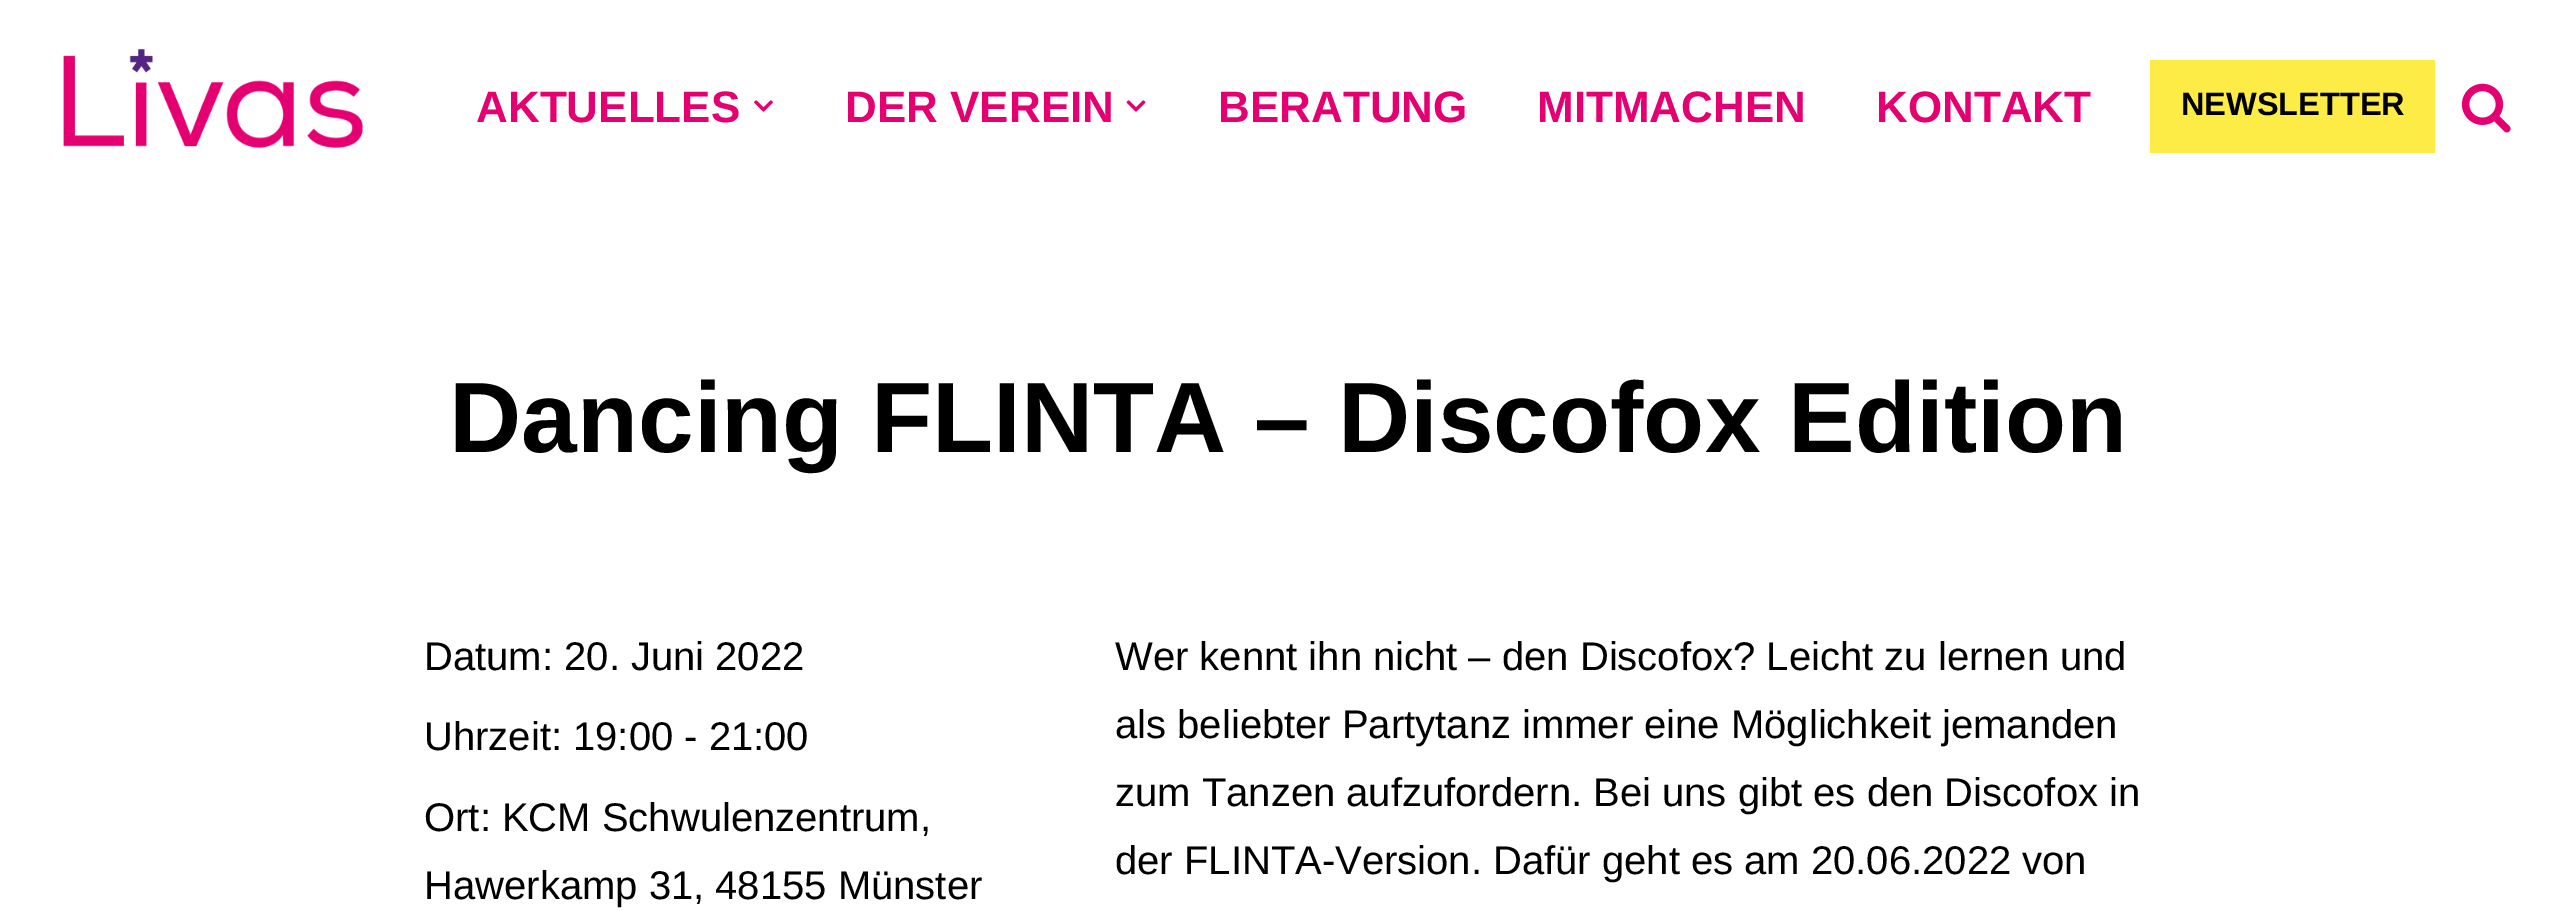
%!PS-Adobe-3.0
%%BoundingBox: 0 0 2574 911
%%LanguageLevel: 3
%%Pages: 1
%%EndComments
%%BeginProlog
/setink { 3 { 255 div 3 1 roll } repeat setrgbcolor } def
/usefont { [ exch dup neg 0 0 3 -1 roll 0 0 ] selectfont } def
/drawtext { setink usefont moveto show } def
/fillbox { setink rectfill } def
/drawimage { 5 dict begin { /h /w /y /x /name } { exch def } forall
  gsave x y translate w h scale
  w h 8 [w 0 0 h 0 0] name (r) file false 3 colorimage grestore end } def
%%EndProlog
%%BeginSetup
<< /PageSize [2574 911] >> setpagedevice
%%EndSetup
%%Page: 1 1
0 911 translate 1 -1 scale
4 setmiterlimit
0 0 2574 911 255 255 255 fillbox
(assets/img1.rgb) 63 49 300 100 drawimage
(AKTUELLES) 476 122 /LiberationSans-Bold 44 229 0 113 drawtext
(assets/img2.rgb) 754 100 19 12 drawimage
(DER VEREIN) 845 122 /LiberationSans-Bold 44 229 0 113 drawtext
(assets/img3.rgb) 1126 100 20 12 drawimage
(BERATUNG) 1218 122 /LiberationSans-Bold 44 229 0 113 drawtext
(MITMACHEN) 1537 122 /LiberationSans-Bold 44 229 0 113 drawtext
(KONTAKT) 1876 122 /LiberationSans-Bold 44 229 0 113 drawtext
2150 60 285 93 252 236 69 fillbox
(NEWSLETTER) 2181 115 /LiberationSans-Bold 32.5 0 0 0 drawtext
(assets/img4.rgb) 2461 83 50 50 drawimage
(Dancing FLINTA – Discofox Edition) 449 452 /LiberationSans-Bold 100 0 0 0 drawtext
(Datum: 20. Juni 2022) 424 670 /LiberationSans-Regular 40 0 0 0 drawtext
(Uhrzeit: 19:00 - 21:00) 424 750 /LiberationSans-Regular 40 0 0 0 drawtext
(Ort: KCM Schwulenzentrum,) 424 831 /LiberationSans-Regular 40 0 0 0 drawtext
(Hawerkamp 31, 48155 Münster) 424 899 /LiberationSans-Regular 40 0 0 0 drawtext
(Wer kennt ihn nicht – den Discofox? Leicht zu lernen und) 1115 670 /LiberationSans-Regular 40 0 0 0 drawtext
(als beliebter Partytanz immer eine Möglichkeit jemanden) 1115 738 /LiberationSans-Regular 40 0 0 0 drawtext
(zum Tanzen aufzufordern. Bei uns gibt es den Discofox in) 1115 806 /LiberationSans-Regular 40 0 0 0 drawtext
(der FLINTA-Version. Dafür geht es am 20.06.2022 von) 1115 874 /LiberationSans-Regular 40 0 0 0 drawtext
showpage
%%EOF
